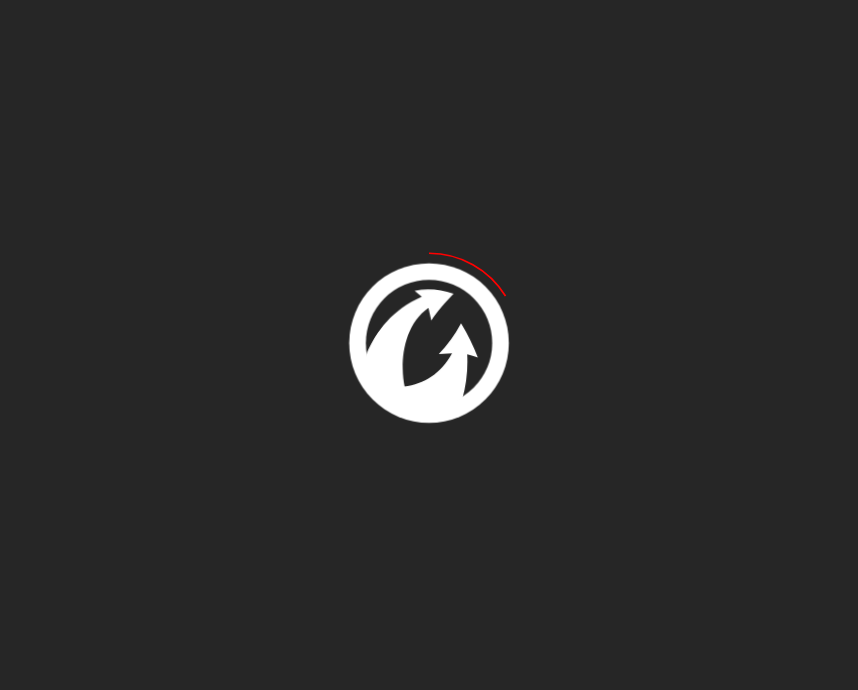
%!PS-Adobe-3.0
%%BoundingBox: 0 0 858 690
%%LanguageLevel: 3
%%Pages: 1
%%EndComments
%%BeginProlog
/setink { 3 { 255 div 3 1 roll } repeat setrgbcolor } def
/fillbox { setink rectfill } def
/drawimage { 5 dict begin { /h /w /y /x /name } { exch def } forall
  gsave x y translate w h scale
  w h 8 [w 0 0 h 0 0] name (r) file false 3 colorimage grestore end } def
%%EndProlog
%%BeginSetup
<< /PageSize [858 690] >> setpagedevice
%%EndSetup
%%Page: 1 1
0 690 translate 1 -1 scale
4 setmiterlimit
0 0 858 690 38 38 38 fillbox
(assets/img1.rgb) 348 252 162 172 drawimage
showpage
%%EOF
